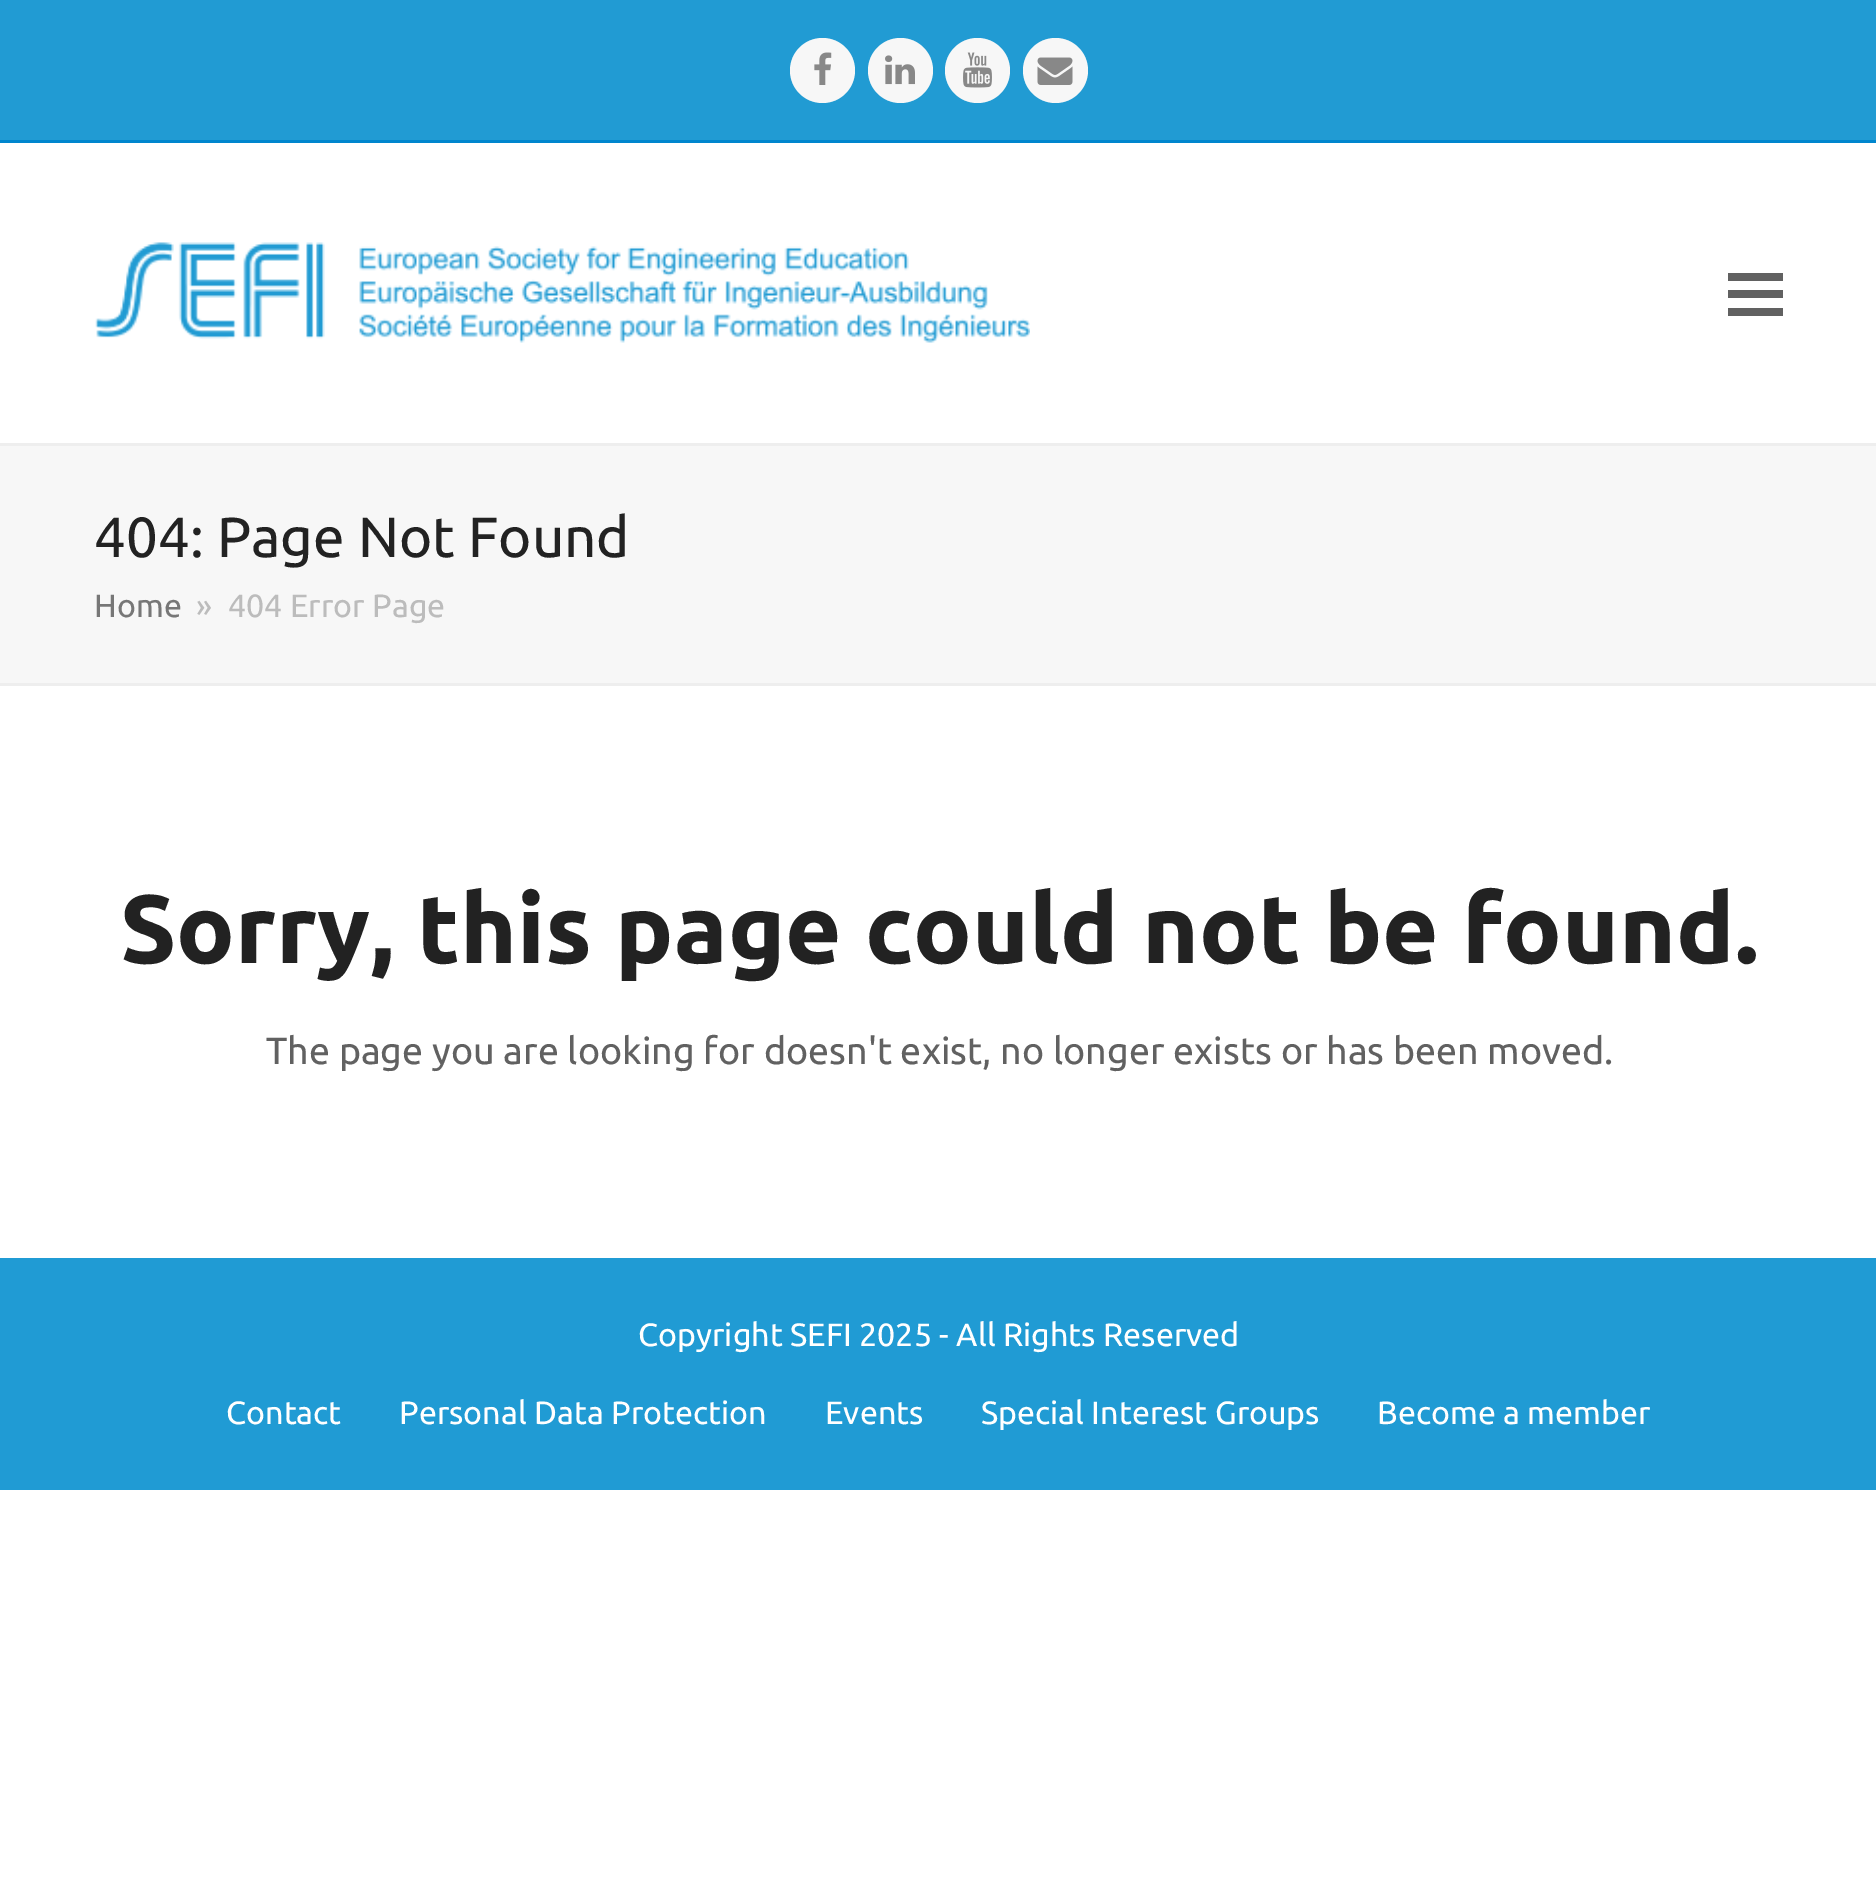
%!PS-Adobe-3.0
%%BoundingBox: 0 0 1876 1899
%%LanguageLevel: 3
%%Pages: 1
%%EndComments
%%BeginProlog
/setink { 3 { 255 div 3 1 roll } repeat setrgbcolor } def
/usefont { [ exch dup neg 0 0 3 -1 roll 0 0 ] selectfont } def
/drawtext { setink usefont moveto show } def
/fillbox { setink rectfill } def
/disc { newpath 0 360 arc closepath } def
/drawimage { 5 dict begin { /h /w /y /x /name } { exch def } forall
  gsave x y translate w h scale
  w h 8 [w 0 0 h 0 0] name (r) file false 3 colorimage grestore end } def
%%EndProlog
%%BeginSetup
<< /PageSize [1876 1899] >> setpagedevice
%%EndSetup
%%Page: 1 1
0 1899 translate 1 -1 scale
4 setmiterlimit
0 0 1876 1899 255 255 255 fillbox
0 0 1876 140 33 155 211 fillbox
0 140 1876 3 0 134 206 fillbox
247 247 247 setink
822.5 70.5 32.5 disc fill
(assets/img1.rgb) 814 52 18 33 drawimage
900.5 70.5 32.5 disc fill
(assets/img2.rgb) 885 55 30 30 drawimage
977.5 70.5 32.5 disc fill
(assets/img3.rgb) 963 52 29 36 drawimage
1055.5 70.5 32.5 disc fill
(assets/img4.rgb) 1037 57 36 28 drawimage
(assets/img5.rgb) 95 242 935 101 drawimage
1728 290 55 8 97 97 97 fillbox
1728 273 55 8 97 97 97 fillbox
1728 308 55 8 97 97 97 fillbox
0 446 1876 237 247 247 247 fillbox
0 443 1876 3 238 238 238 fillbox
0 683 1876 3 238 238 238 fillbox
(404: Page Not Found) 94 557 /Ubuntu-Regular 56.5 34 34 34 drawtext
(Home) 94 617 /Ubuntu-Regular 32.25 119 119 119 drawtext
(») 196 617 /Ubuntu-Regular 32.25 188 188 188 drawtext
(404 Error Page) 228 617 /Ubuntu-Regular 32.25 188 188 188 drawtext
(Sorry, this page could not be found.) 120 963 /Ubuntu-Bold 96.9 34 34 34 drawtext
(The page you are looking for doesn't exist, no longer exists or has been moved.) 266 1064 /Ubuntu-Regular 37.7 97 97 97 drawtext
0 1258 1876 232 32 155 212 fillbox
(Copyright SEFI 2025 - All Rights Reserved) 638 1346 /Ubuntu-Regular 32.25 255 255 255 drawtext
(Contact) 226 1424 /Ubuntu-Regular 32.25 255 255 255 drawtext
(Personal Data Protection) 399 1424 /Ubuntu-Regular 32.25 255 255 255 drawtext
(Events) 825 1424 /Ubuntu-Regular 32.25 255 255 255 drawtext
(Special Interest Groups) 981 1424 /Ubuntu-Regular 32.25 255 255 255 drawtext
(Become a member) 1377 1424 /Ubuntu-Regular 32.25 255 255 255 drawtext
showpage
%%EOF
